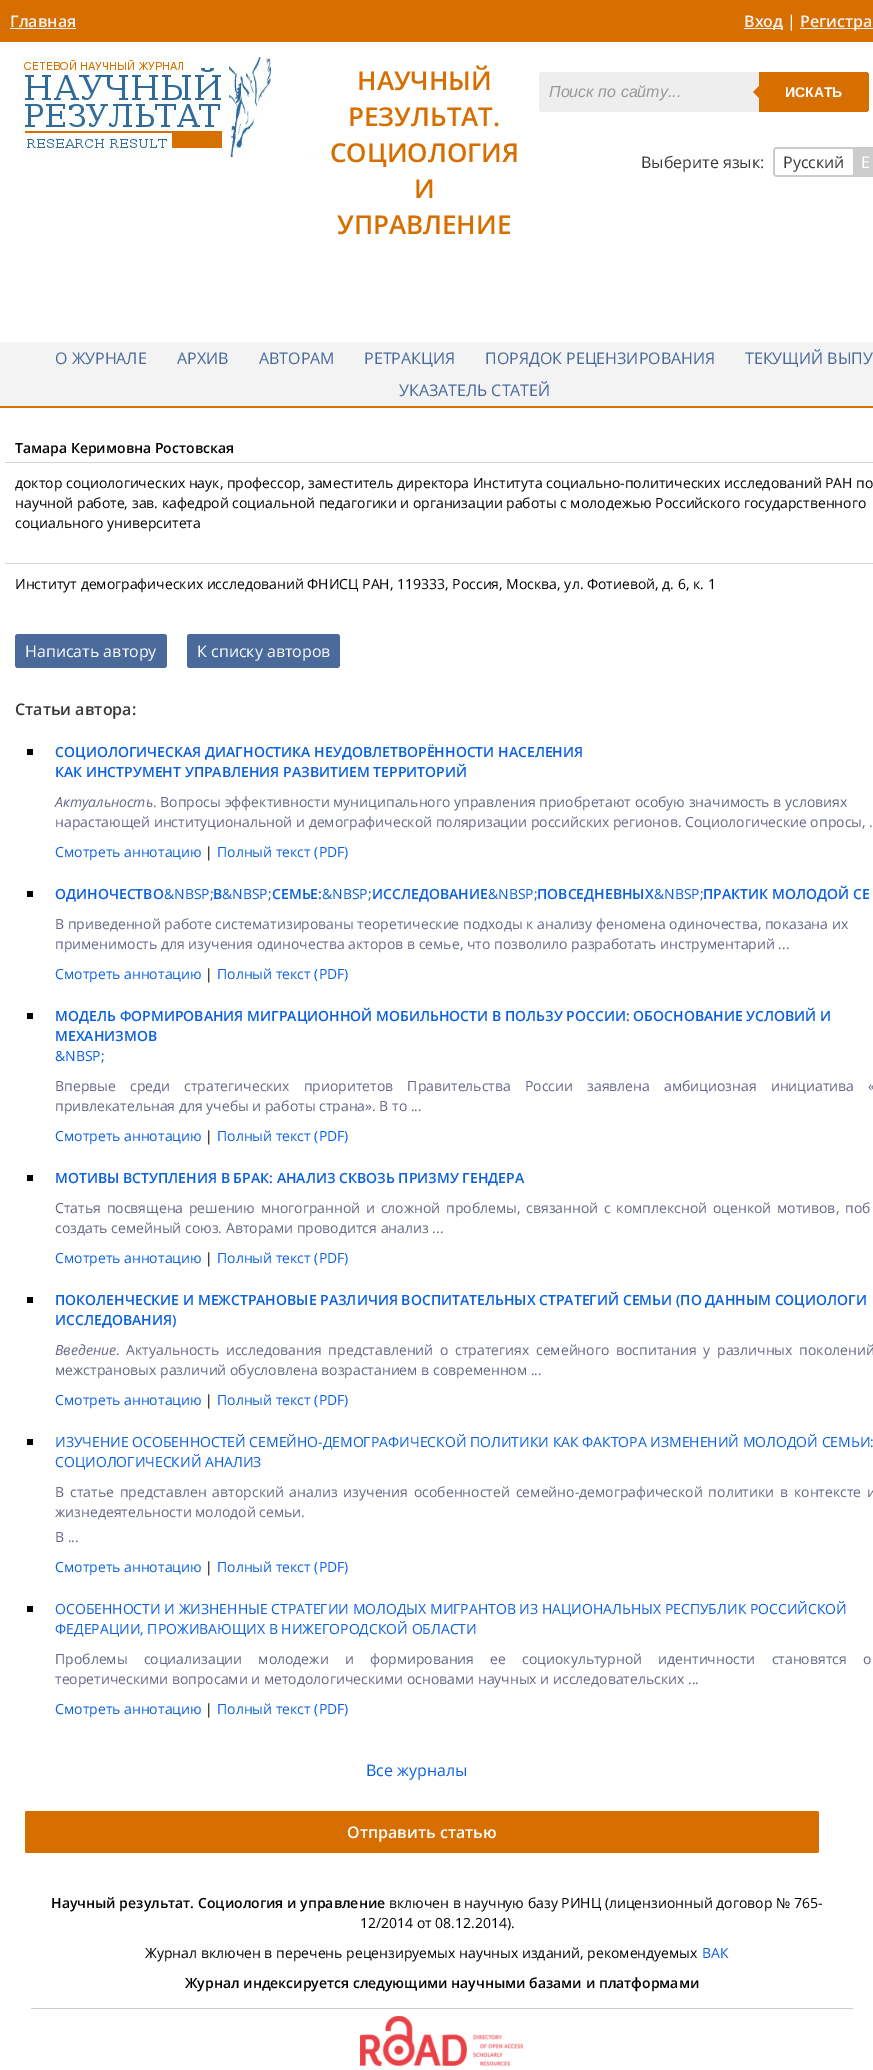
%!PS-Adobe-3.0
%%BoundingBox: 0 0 873 2070
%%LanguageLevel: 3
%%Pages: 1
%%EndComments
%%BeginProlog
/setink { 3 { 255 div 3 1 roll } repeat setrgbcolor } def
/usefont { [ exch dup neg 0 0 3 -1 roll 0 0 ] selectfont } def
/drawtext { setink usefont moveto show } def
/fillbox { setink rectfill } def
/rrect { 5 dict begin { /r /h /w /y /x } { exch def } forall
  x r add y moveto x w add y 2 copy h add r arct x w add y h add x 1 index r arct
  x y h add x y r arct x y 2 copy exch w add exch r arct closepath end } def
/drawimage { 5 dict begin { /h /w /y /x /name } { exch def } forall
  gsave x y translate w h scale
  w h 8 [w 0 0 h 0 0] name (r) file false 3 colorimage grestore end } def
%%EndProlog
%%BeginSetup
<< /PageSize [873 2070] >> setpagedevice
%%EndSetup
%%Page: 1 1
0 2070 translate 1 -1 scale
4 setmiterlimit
0 0 873 2070 255 255 255 fillbox
0 0 873 42 215 110 0 fillbox
(Главная) 10 27 /OpenSans-SemiBold 16 241 241 241 drawtext
10 28 66 1 241 241 241 fillbox
744 28 39 1 241 241 241 fillbox
(Вход) 744 27 /OpenSans-SemiBold 16 241 241 241 drawtext
(|) 787 27 /OpenSans-Regular 16 255 255 255 drawtext
800 28 73 1 241 241 241 fillbox
(Регистра) 800 27 /OpenSans-SemiBold 16 241 241 241 drawtext
(assets/img1.rgb) 23 57 292 100 drawimage
(НАУЧНЫЙ) 357 90 /OpenSans-SemiBold 26 215 110 0 drawtext
(РЕЗУЛЬТАТ.) 348 126 /OpenSans-SemiBold 26 215 110 0 drawtext
(СОЦИОЛОГИЯ) 330 162 /OpenSans-SemiBold 26 215 110 0 drawtext
(И) 414 198 /OpenSans-SemiBold 26 215 110 0 drawtext
(УПРАВЛЕНИЕ) 337 234 /OpenSans-SemiBold 26 215 110 0 drawtext
238 238 238 setink
542 72 moveto 759 72 lineto 759 112 lineto 542 112 lineto 540.5 112 539 110.5 539 109 curveto 539 75 lineto 539 73.5 540.5 72 542 72 curveto closepath fill
(Поиск по сайту...) 549 97 /LiberationSans-Italic 16 153 153 153 drawtext
215 110 0 setink
759 72 moveto 866 72 lineto 867.5 72 869 73.5 869 75 curveto 869 109 lineto 869 110.5 867.5 112 866 112 curveto 759 112 lineto closepath fill
761 84 moveto 761 100 lineto 753 92 lineto closepath fill
(ИСКАТЬ) 785 97 /LiberationSans-Bold 14 255 255 255 drawtext
(Выберите язык:) 641 168 /OpenSans-Regular 16 57 57 57 drawtext
204 204 204 setink
773 147 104 30 4 rrect fill
255 255 255 setink
775 149 78 26 2 rrect fill
(Русский) 783 168 /OpenSans-Regular 16 57 57 57 drawtext
(E) 861 168 /OpenSans-Regular 16 255 255 255 drawtext
0 342 873 64 243 243 243 fillbox
0 406 873 2 215 110 0 fillbox
(О ЖУРНАЛЕ) 55 364 /OpenSans-Regular 16 73 106 155 drawtext
(АРХИВ) 177 364 /OpenSans-Regular 16 73 106 155 drawtext
(АВТОРАМ) 259 364 /OpenSans-Regular 16 73 106 155 drawtext
(РЕТРАКЦИЯ) 364 364 /OpenSans-Regular 16 73 106 155 drawtext
(ПОРЯДОК РЕЦЕНЗИРОВАНИЯ) 485 364 /OpenSans-Regular 16 73 106 155 drawtext
(ТЕКУЩИЙ ВЫПУ) 745 364 /OpenSans-Regular 16 73 106 155 drawtext
(УКАЗАТЕЛЬ СТАТЕЙ) 399 396 /OpenSans-Regular 16 73 106 155 drawtext
(Тамара Керимовна Ростовская) 15 453 /OpenSans-SemiBold 14 0 0 0 drawtext
5 462 868 1 208 212 220 fillbox
(доктор социологических наук, профессор, заместитель директора Института социально-политических исследований РАН по) 15 488 /OpenSans-Regular 14 0 0 0 drawtext
(научной работе, зав. кафедрой социальной педагогики и организации работы с молодежью Российского государственного) 15 508 /OpenSans-Regular 14 0 0 0 drawtext
(социального университета) 15 528 /OpenSans-Regular 14 0 0 0 drawtext
5 563 868 1 208 212 220 fillbox
(Институт демографических исследований ФНИСЦ РАН, 119333, Россия, Москва, ул. Фотиевой, д. 6, к. 1) 15 589 /OpenSans-Regular 14 0 0 0 drawtext
73 106 155 setink
15 634 152 34 3 rrect fill
(Написать автору) 25 657 /OpenSans-Regular 16 255 255 255 drawtext
73 106 155 setink
187 634 153 34 3 rrect fill
(К списку авторов) 197 657 /OpenSans-Regular 16 255 255 255 drawtext
(Статьи автора:) 15 715 /OpenSans-SemiBold 16 57 57 57 drawtext
27 749 6 6 0 0 0 fillbox
(СОЦИОЛОГИЧЕСКАЯ ДИАГНОСТИКА НЕУДОВЛЕТВОРЁННОСТИ НАСЕЛЕНИЯ) 55 757 /OpenSans-SemiBold 14 12 97 224 drawtext
(КАК ИНСТРУМЕНТ УПРАВЛЕНИЯ РАЗВИТИЕМ ТЕРРИТОРИЙ) 55 777 /OpenSans-SemiBold 14 12 97 224 drawtext
(Актуальность) 55 807 /OpenSans-Italic 14 100 103 134 drawtext
(. Вопросы эффективности муниципального управления приобретают особую значимость в условиях) 153 807 /OpenSans-Regular 14 100 103 134 drawtext
(нарастающей институциональной и демографической поляризации российских регионов. Социологические опросы, .) 55 827 /OpenSans-Regular 14 100 103 134 drawtext
(Смотреть аннотацию) 55 857 /OpenSans-Regular 14 12 97 224 drawtext
(|) 205 857 /OpenSans-Regular 14 0 0 0 drawtext
(Полный текст \(PDF\)) 217 857 /OpenSans-Regular 14 12 97 224 drawtext
27 891 6 6 0 0 0 fillbox
(ОДИНОЧЕСТВО) 55 899 /OpenSans-SemiBold 14 12 97 224 drawtext
(&NBSP;) 164 899 /OpenSans-Regular 14 12 97 224 drawtext
(В) 213 899 /OpenSans-SemiBold 14 12 97 224 drawtext
(&NBSP;) 222 899 /OpenSans-Regular 14 12 97 224 drawtext
(СЕМЬЕ:) 272 899 /OpenSans-SemiBold 14 12 97 224 drawtext
(&NBSP;) 322 899 /OpenSans-Regular 14 12 97 224 drawtext
(ИССЛЕДОВАНИЕ) 372 899 /OpenSans-SemiBold 14 12 97 224 drawtext
(&NBSP;) 488 899 /OpenSans-Regular 14 12 97 224 drawtext
(ПОВСЕДНЕВНЫХ) 537 899 /OpenSans-SemiBold 14 12 97 224 drawtext
(&NBSP;) 654 899 /OpenSans-Regular 14 12 97 224 drawtext
(ПРАКТИК МОЛОДОЙ СЕ) 703 899 /OpenSans-SemiBold 14 12 97 224 drawtext
(В приведенной работе систематизированы теоретические подходы к анализу феномена одиночества, показана их) 55 929 /OpenSans-Regular 14 100 103 134 drawtext
(применимость для изучения одиночества акторов в семье, что позволило разработать инструментарий ...) 55 949 /OpenSans-Regular 14 100 103 134 drawtext
(Смотреть аннотацию) 55 979 /OpenSans-Regular 14 12 97 224 drawtext
(|) 205 979 /OpenSans-Regular 14 0 0 0 drawtext
(Полный текст \(PDF\)) 217 979 /OpenSans-Regular 14 12 97 224 drawtext
27 1013 6 6 0 0 0 fillbox
(МОДЕЛЬ ФОРМИРОВАНИЯ МИГРАЦИОННОЙ МОБИЛЬНОСТИ В ПОЛЬЗУ РОССИИ: ОБОСНОВАНИЕ УСЛОВИЙ И) 55 1021 /OpenSans-SemiBold 14 12 97 224 drawtext
(МЕХАНИЗМОВ) 55 1041 /OpenSans-SemiBold 14 12 97 224 drawtext
(&NBSP;) 55 1061 /OpenSans-Regular 14 12 97 224 drawtext
100 103 134 setink
55 1091 moveto 10.5 0 32 (Впервые среди стратегических приоритетов Правительства России заявлена амбициозная инициатива «) widthshow
(привлекательная для учебы и работы страна». В то ...) 55 1111 /OpenSans-Regular 14 100 103 134 drawtext
(Смотреть аннотацию) 55 1141 /OpenSans-Regular 14 12 97 224 drawtext
(|) 205 1141 /OpenSans-Regular 14 0 0 0 drawtext
(Полный текст \(PDF\)) 217 1141 /OpenSans-Regular 14 12 97 224 drawtext
27 1175 6 6 0 0 0 fillbox
(МОТИВЫ ВСТУПЛЕНИЯ В БРАК: АНАЛИЗ СКВОЗЬ ПРИЗМУ ГЕНДЕРА) 55 1183 /OpenSans-SemiBold 14 12 97 224 drawtext
/OpenSans-Regular 14 usefont
100 103 134 setink
55 1213 moveto 2.1 0 32 (Статья посвящена решению многогранной и сложной проблемы, связанной с комплексной оценкой мотивов, поб) widthshow
(создать семейный союз. Авторами проводится анализ ...) 55 1233 /OpenSans-Regular 14 100 103 134 drawtext
(Смотреть аннотацию) 55 1263 /OpenSans-Regular 14 12 97 224 drawtext
(|) 205 1263 /OpenSans-Regular 14 0 0 0 drawtext
(Полный текст \(PDF\)) 217 1263 /OpenSans-Regular 14 12 97 224 drawtext
27 1297 6 6 0 0 0 fillbox
(ПОКОЛЕНЧЕСКИЕ И МЕЖСТРАНОВЫЕ РАЗЛИЧИЯ ВОСПИТАТЕЛЬНЫХ СТРАТЕГИЙ СЕМЬИ \(ПО ДАННЫМ СОЦИОЛОГИ) 55 1305 /OpenSans-SemiBold 14 12 97 224 drawtext
(ИССЛЕДОВАНИЯ\)) 55 1325 /OpenSans-SemiBold 14 12 97 224 drawtext
(Введение) 55 1355 /OpenSans-Italic 14 100 103 134 drawtext
/OpenSans-Regular 14 usefont
116 1355 moveto 3.1 0 32 (. Актуальность исследования представлений о стратегиях семейного воспитания у различных поколений) widthshow
(межстрановых различий обусловлена возрастанием в современном ...) 55 1375 /OpenSans-Regular 14 100 103 134 drawtext
(Смотреть аннотацию) 55 1405 /OpenSans-Regular 14 12 97 224 drawtext
(|) 205 1405 /OpenSans-Regular 14 0 0 0 drawtext
(Полный текст \(PDF\)) 217 1405 /OpenSans-Regular 14 12 97 224 drawtext
27 1439 6 6 0 0 0 fillbox
(ИЗУЧЕНИЕ ОСОБЕННОСТЕЙ СЕМЕЙНО-ДЕМОГРАФИЧЕСКОЙ ПОЛИТИКИ КАК ФАКТОРА ИЗМЕНЕНИЙ МОЛОДОЙ СЕМЬИ:) 55 1447 /OpenSans-Regular 14 12 97 224 drawtext
(СОЦИОЛОГИЧЕСКИЙ АНАЛИЗ) 55 1467 /OpenSans-Regular 14 12 97 224 drawtext
100 103 134 setink
55 1497 moveto 2.25 0 32 (В статье представлен авторский анализ изучения особенностей семейно-демографической политики в контексте и) widthshow
(жизнедеятельности молодой семьи.) 55 1517 /OpenSans-Regular 14 100 103 134 drawtext
(В ...) 55 1542 /OpenSans-Regular 14 100 103 134 drawtext
(Смотреть аннотацию) 55 1572 /OpenSans-Regular 14 12 97 224 drawtext
(|) 205 1572 /OpenSans-Regular 14 0 0 0 drawtext
(Полный текст \(PDF\)) 217 1572 /OpenSans-Regular 14 12 97 224 drawtext
27 1606 6 6 0 0 0 fillbox
(ОСОБЕННОСТИ И ЖИЗНЕННЫЕ СТРАТЕГИИ МОЛОДЫХ МИГРАНТОВ ИЗ НАЦИОНАЛЬНЫХ РЕСПУБЛИК РОССИЙСКОЙ) 55 1614 /OpenSans-Regular 14 12 97 224 drawtext
(ФЕДЕРАЦИИ, ПРОЖИВАЮЩИХ В НИЖЕГОРОДСКОЙ ОБЛАСТИ) 55 1634 /OpenSans-Regular 14 12 97 224 drawtext
100 103 134 setink
55 1664 moveto 12.5 0 32 (Проблемы социализации молодежи и формирования ее социокультурной идентичности становятся о) widthshow
(теоретическими вопросами и методологическими основами научных и исследовательских ...) 55 1684 /OpenSans-Regular 14 100 103 134 drawtext
(Смотреть аннотацию) 55 1714 /OpenSans-Regular 14 12 97 224 drawtext
(|) 205 1714 /OpenSans-Regular 14 0 0 0 drawtext
(Полный текст \(PDF\)) 217 1714 /OpenSans-Regular 14 12 97 224 drawtext
(Все журналы) 366 1776 /OpenSans-Regular 16 12 97 224 drawtext
215 110 0 setink
25 1811 794 42 2 rrect fill
(Отправить статью) 347 1838 /OpenSans-SemiBold 16 255 255 255 drawtext
(Научный результат. Социология и управление) 51 1908 /OpenSans-SemiBold 14 0 0 0 drawtext
(включен в научную базу РИНЦ \(лицензионный договор № 765-) 389 1908 /OpenSans-Regular 14 0 0 0 drawtext
(12/2014 от 08.12.2014\).) 360 1928 /OpenSans-Regular 14 0 0 0 drawtext
(Журнал включен в перечень рецензируемых научных изданий, рекомендуемых) 145 1958 /OpenSans-Regular 14 0 0 0 drawtext
(ВАК) 702 1958 /OpenSans-Regular 14 12 97 224 drawtext
(Журнал индексируется следующими научными базами и платформами) 185 1988 /OpenSans-SemiBold 14 0 0 0 drawtext
31 2008 822 1 204 204 204 fillbox
(assets/img2.rgb) 360 2016 163 50 drawimage
showpage
%%EOF
